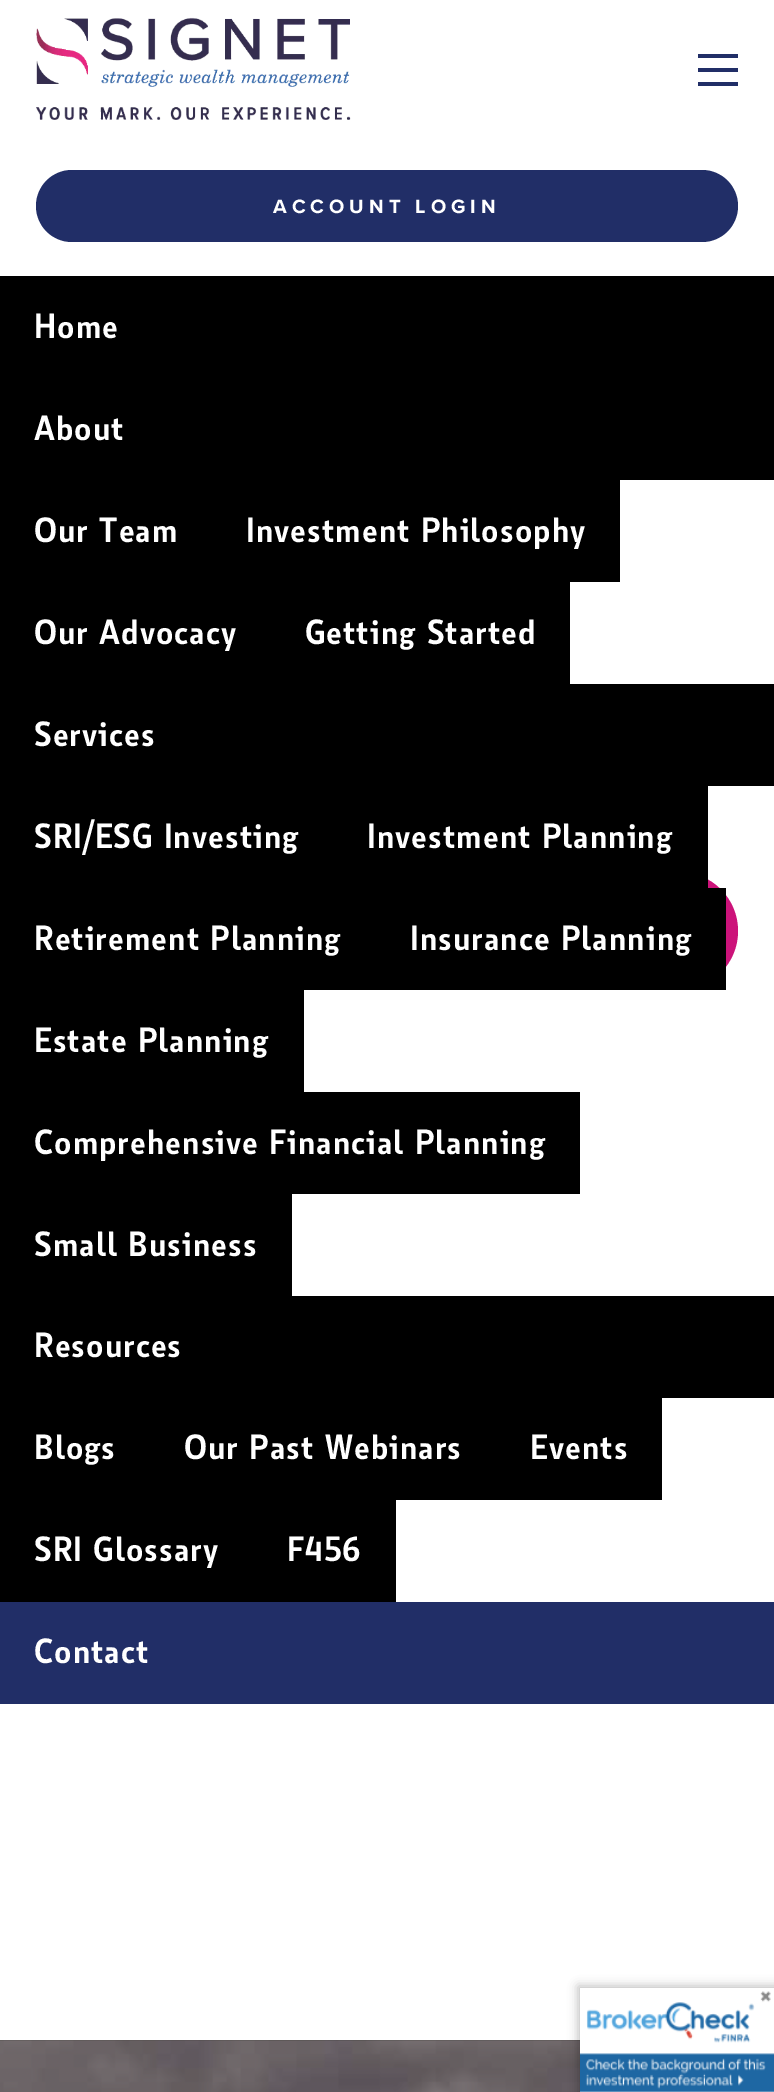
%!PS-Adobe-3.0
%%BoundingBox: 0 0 774 2092
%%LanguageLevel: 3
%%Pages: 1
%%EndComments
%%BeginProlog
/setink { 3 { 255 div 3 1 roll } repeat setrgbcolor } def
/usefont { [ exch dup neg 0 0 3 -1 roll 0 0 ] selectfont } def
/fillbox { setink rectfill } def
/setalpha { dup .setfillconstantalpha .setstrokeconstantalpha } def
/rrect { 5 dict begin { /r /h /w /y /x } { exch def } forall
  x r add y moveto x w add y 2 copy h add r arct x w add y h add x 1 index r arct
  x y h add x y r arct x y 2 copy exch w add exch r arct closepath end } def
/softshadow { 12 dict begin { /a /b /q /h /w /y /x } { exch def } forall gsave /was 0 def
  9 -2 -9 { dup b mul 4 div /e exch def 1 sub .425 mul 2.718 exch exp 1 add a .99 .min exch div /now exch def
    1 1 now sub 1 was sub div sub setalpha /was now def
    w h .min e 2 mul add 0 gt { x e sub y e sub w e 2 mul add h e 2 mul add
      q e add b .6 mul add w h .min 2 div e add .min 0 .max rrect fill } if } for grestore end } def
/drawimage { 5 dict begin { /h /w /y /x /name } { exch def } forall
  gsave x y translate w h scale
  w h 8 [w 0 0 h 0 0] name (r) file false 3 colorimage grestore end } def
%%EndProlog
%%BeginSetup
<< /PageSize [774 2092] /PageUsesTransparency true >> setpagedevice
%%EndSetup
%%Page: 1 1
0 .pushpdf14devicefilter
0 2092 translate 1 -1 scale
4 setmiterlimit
0 0 774 2092 255 255 255 fillbox
(assets/img1.rgb) 36 17 315 103 drawimage
698 82 40 4 33 46 103 fillbox
698 68 40 4 33 46 103 fillbox
698 54 40 4 33 46 103 fillbox
36 170 702 72 36 rrect fill
/ProximaNova-Bold 20 usefont
255 255 255 setink
273 213 moveto 5 0 (ACCOUNT LOGIN) ashow
0 276 774 204 0 0 0 fillbox
/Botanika-SemiBold 34 usefont
255 255 255 setink
34 338 moveto 1 0 (Home) ashow
34 440 moveto 1 0 (About) ashow
0 480 620 102 0 0 0 fillbox
255 255 255 setink
34 542 moveto 1 0 (Our Team) ashow
246 542 moveto 1 0 (Investment Philosophy) ashow
0 582 570 102 0 0 0 fillbox
255 255 255 setink
34 644 moveto 1 0 (Our Advocacy) ashow
305 644 moveto 1 0 (Getting Started) ashow
0 684 774 102 0 0 0 fillbox
255 255 255 setink
34 746 moveto 1 0 (Services) ashow
204 19 122 setink
36 872 702 118 59 rrect fill
0 786 708 102 0 0 0 fillbox
255 255 255 setink
34 848 moveto 1 0 (SRI/ESG Investing) ashow
367 848 moveto 1 0 (Investment Planning) ashow
0 888 726 102 0 0 0 fillbox
255 255 255 setink
34 950 moveto 1 0 (Retirement Planning) ashow
410 950 moveto 1 0 (Insurance Planning) ashow
0 990 304 102 0 0 0 fillbox
255 255 255 setink
34 1052 moveto 1 0 (Estate Planning) ashow
0 1092 580 102 0 0 0 fillbox
255 255 255 setink
34 1154 moveto 1 0 (Comprehensive Financial Planning) ashow
0 1194 292 102 0 0 0 fillbox
255 255 255 setink
34 1256 moveto 1 0 (Small Business) ashow
0 1296 774 102 0 0 0 fillbox
255 255 255 setink
34 1357 moveto 1 0 (Resources) ashow
0 1398 662 102 0 0 0 fillbox
255 255 255 setink
34 1459 moveto 1 0 (Blogs) ashow
184 1459 moveto 1 0 (Our Past Webinars) ashow
530 1459 moveto 1 0 (Events) ashow
0 1500 396 102 0 0 0 fillbox
255 255 255 setink
34 1561 moveto 1 0 (SRI Glossary) ashow
287 1561 moveto 1 0 (F456) ashow
0 1602 774 102 33 46 103 fillbox
255 255 255 setink
34 1663 moveto 1 0 (Contact) ashow
(assets/img2.rgb) 0 2040 580 52 drawimage
gsave
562 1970 moveto 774 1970 lineto 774 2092 lineto 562 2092 lineto closepath 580 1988 moveto 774 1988 lineto 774 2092 lineto 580 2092 lineto closepath eoclip newpath
0 0 0 setink
578 1986 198 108 0 5 0.25 softshadow
grestore
(assets/img3.rgb) 580 1991 194 101 drawimage
.poppdf14devicefilter showpage
%%EOF
